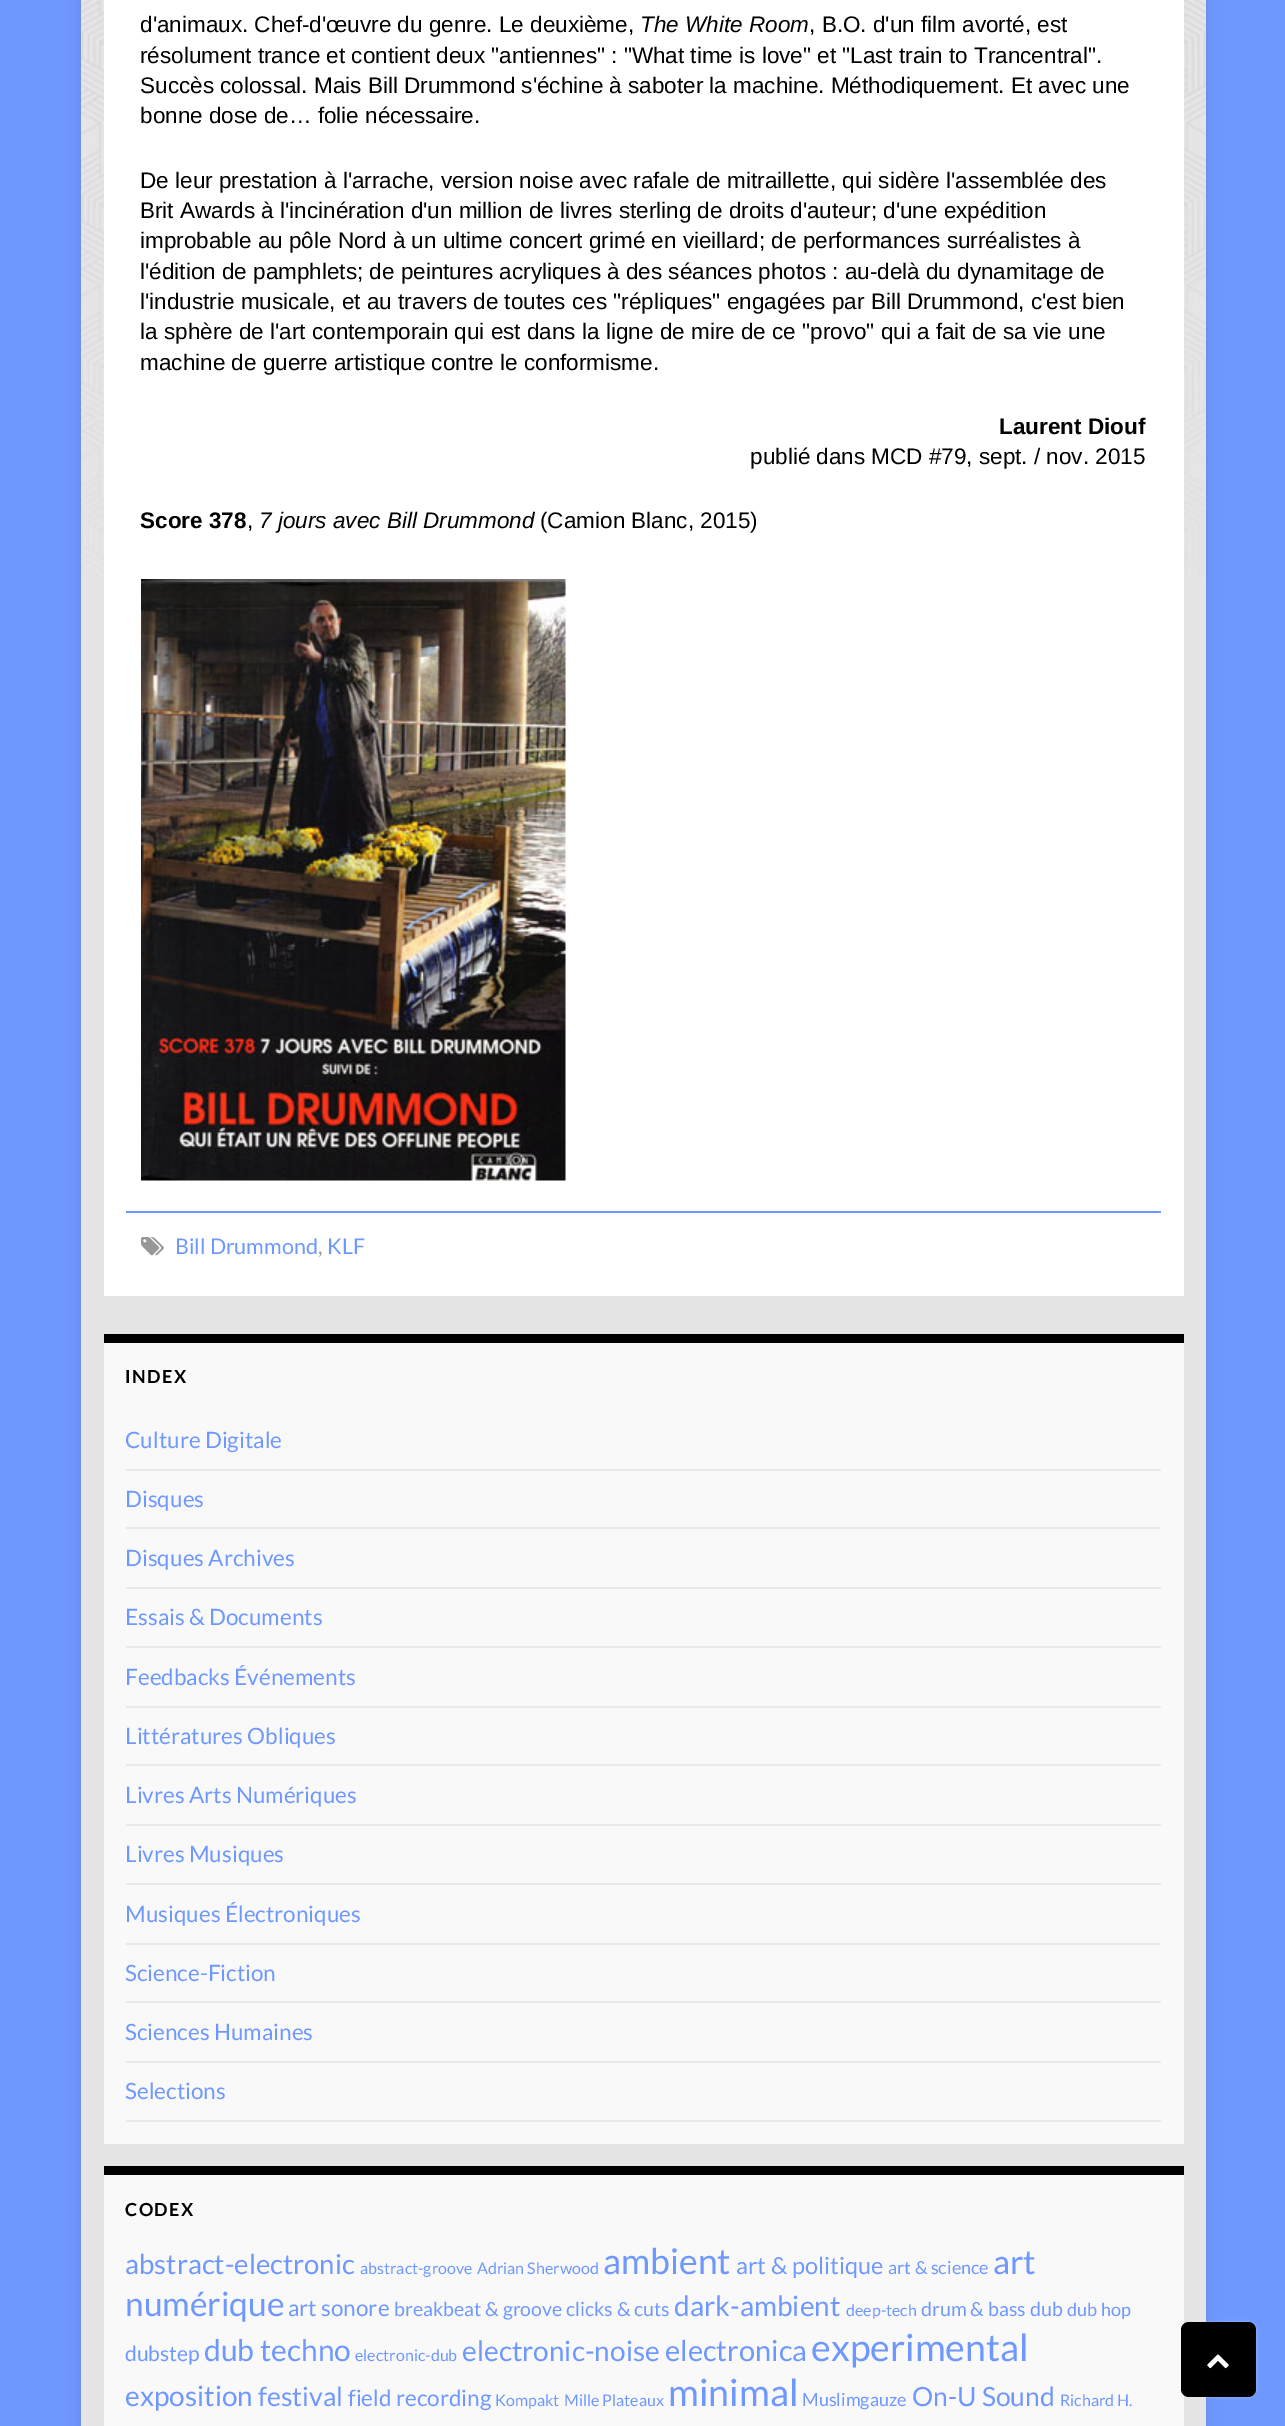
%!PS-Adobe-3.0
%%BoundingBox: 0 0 1285 2426
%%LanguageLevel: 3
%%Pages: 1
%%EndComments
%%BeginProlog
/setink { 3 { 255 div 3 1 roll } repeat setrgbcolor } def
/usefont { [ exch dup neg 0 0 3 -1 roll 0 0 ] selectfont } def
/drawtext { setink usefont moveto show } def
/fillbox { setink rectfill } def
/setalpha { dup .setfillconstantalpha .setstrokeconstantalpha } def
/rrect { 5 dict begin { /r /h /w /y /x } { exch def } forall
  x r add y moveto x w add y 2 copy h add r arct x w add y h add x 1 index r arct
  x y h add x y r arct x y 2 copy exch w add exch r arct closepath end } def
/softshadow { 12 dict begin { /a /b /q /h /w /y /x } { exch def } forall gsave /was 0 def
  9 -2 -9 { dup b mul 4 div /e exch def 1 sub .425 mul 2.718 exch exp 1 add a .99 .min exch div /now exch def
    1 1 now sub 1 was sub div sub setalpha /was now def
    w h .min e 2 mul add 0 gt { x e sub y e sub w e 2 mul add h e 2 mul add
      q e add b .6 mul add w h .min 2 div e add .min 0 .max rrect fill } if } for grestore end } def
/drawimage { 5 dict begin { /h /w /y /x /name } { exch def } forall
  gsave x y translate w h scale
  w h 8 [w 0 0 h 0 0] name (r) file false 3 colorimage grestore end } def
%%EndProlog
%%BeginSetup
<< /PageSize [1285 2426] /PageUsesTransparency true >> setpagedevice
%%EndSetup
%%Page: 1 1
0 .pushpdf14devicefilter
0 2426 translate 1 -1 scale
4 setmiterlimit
0 0 1285 2426 111 152 255 fillbox
0 0 0 setink
81 -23 1125 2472 0 7.5 0.1 softshadow
81 577 1125 1849 229 229 229 fillbox
(assets/img1.rgb) 81 0 1125 577 drawimage
104 0 1080 1296 255 255 255 fillbox
(d'animaux. Chef-d'œuvre du genre. Le deuxième,) 140 32 /LiberationSans-Regular 22.5 0 0 0 drawtext
(The White Room) 640 32 /LiberationSans-Italic 22.5 0 0 0 drawtext
(, B.O. d'un film avorté, est) 809 32 /LiberationSans-Regular 22.5 0 0 0 drawtext
(résolument trance et contient deux "antiennes" : "What time is love" et "Last train to Trancentral".) 140 63 /LiberationSans-Regular 22.5 0 0 0 drawtext
(Succès colossal. Mais Bill Drummond s'échine à saboter la machine. Méthodiquement. Et avec une) 140 93 /LiberationSans-Regular 22.5 0 0 0 drawtext
(bonne dose de… folie nécessaire.) 140 123 /LiberationSans-Regular 22.5 0 0 0 drawtext
(De leur prestation à l'arrache, version noise avec rafale de mitraillette, qui sidère l'assemblée des) 140 188 /LiberationSans-Regular 22.5 0 0 0 drawtext
(Brit Awards à l'incinération d'un million de livres sterling de droits d'auteur; d'une expédition) 140 218 /LiberationSans-Regular 22.5 0 0 0 drawtext
(improbable au pôle Nord à un ultime concert grimé en vieillard; de performances surréalistes à) 140 248 /LiberationSans-Regular 22.5 0 0 0 drawtext
(l'édition de pamphlets; de peintures acryliques à des séances photos : au-delà du dynamitage de) 140 279 /LiberationSans-Regular 22.5 0 0 0 drawtext
(l'industrie musicale, et au travers de toutes ces "répliques" engagées par Bill Drummond, c'est bien) 140 309 /LiberationSans-Regular 22.5 0 0 0 drawtext
(la sphère de l'art contemporain qui est dans la ligne de mire de ce "provo" qui a fait de sa vie une) 140 339 /LiberationSans-Regular 22.5 0 0 0 drawtext
(machine de guerre artistique contre le conformisme.) 140 370 /LiberationSans-Regular 22.5 0 0 0 drawtext
(Laurent Diouf) 999 434 /LiberationSans-Bold 22.5 0 0 0 drawtext
(publié dans MCD #79, sept. / nov. 2015) 750 464 /LiberationSans-Regular 22.5 0 0 0 drawtext
(Score 378) 140 528 /LiberationSans-Bold 22.5 0 0 0 drawtext
(,) 247 528 /LiberationSans-Regular 22.5 0 0 0 drawtext
(7 jours avec Bill Drummond) 259 528 /LiberationSans-Italic 22.5 0 0 0 drawtext
(\(Camion Blanc, 2015\)) 540 528 /LiberationSans-Regular 22.5 0 0 0 drawtext
(assets/img2.rgb) 141 579 425 602 drawimage
126 1211 1035 2 111 152 255 fillbox
(assets/img3.rgb) 141 1237 23 19 drawimage
(Bill Drummond) 175 1254 /Lato-Regular 21.5 111 152 255 drawtext
(,) 318 1254 /Lato-Regular 21.5 152 152 152 drawtext
(KLF) 327 1254 /Lato-Regular 21.5 111 152 255 drawtext
104 1343 1080 801 249 249 249 fillbox
104 1334 1080 9 0 0 0 fillbox
/Lato-Bold 18 usefont
125 1383 moveto 1.5 0 (INDEX) ashow
126 1469 1035 2 233 233 233 fillbox
(Culture Digitale) 125 1448 /Lato-Regular 22.5 111 152 255 drawtext
126 1527 1035 2 233 233 233 fillbox
(Disques) 125 1507 /Lato-Regular 22.5 111 152 255 drawtext
126 1587 1035 2 233 233 233 fillbox
(Disques Archives) 125 1566 /Lato-Regular 22.5 111 152 255 drawtext
126 1646 1035 2 233 233 233 fillbox
(Essais & Documents) 125 1625 /Lato-Regular 22.5 111 152 255 drawtext
126 1706 1035 2 233 233 233 fillbox
(Feedbacks Événements) 125 1685 /Lato-Regular 22.5 111 152 255 drawtext
126 1764 1035 2 233 233 233 fillbox
(Littératures Obliques) 125 1744 /Lato-Regular 22.5 111 152 255 drawtext
126 1824 1035 2 233 233 233 fillbox
(Livres Arts Numériques) 125 1803 /Lato-Regular 22.5 111 152 255 drawtext
126 1883 1035 2 233 233 233 fillbox
(Livres Musiques) 125 1862 /Lato-Regular 22.5 111 152 255 drawtext
126 1943 1035 2 233 233 233 fillbox
(Musiques Électroniques) 125 1922 /Lato-Regular 22.5 111 152 255 drawtext
126 2001 1035 2 233 233 233 fillbox
(Science-Fiction) 125 1981 /Lato-Regular 22.5 111 152 255 drawtext
126 2061 1035 2 233 233 233 fillbox
(Sciences Humaines) 125 2040 /Lato-Regular 22.5 111 152 255 drawtext
126 2120 1035 2 233 233 233 fillbox
(Selections) 125 2099 /Lato-Regular 22.5 111 152 255 drawtext
104 2175 1080 251 249 249 249 fillbox
104 2166 1080 9 0 0 0 fillbox
/Lato-Bold 18 usefont
125 2216 moveto 1.5 0 (CODEX) ashow
(abstract-electronic) 125 2274 /Lato-Regular 27.5 111 152 255 drawtext
(abstract-groove) 360 2274 /Lato-Regular 16 111 152 255 drawtext
(Adrian Sherwood) 477 2274 /Lato-Regular 16 111 152 255 drawtext
(ambient) 603 2274 /Lato-Regular 35.5 111 152 255 drawtext
(art & politique) 736 2274 /Lato-Regular 23.5 111 152 255 drawtext
(art & science) 888 2274 /Lato-Regular 18 111 152 255 drawtext
(art) 993 2274 /Lato-Regular 33.5 111 152 255 drawtext
(numérique) 125 2316 /Lato-Regular 33.5 111 152 255 drawtext
(art sonore) 288 2316 /Lato-Regular 22.5 111 152 255 drawtext
(breakbeat & groove) 394 2316 /Lato-Regular 19.5 111 152 255 drawtext
(clicks & cuts) 566 2316 /Lato-Regular 19.5 111 152 255 drawtext
(dark-ambient) 674 2316 /Lato-Regular 28 111 152 255 drawtext
(deep-tech) 846 2316 /Lato-Regular 16 111 152 255 drawtext
(drum & bass) 921 2316 /Lato-Regular 19.5 111 152 255 drawtext
(dub) 1030 2316 /Lato-Regular 19.5 111 152 255 drawtext
(dub hop) 1067 2316 /Lato-Regular 18 111 152 255 drawtext
(dubstep) 125 2361 /Lato-Regular 21 111 152 255 drawtext
(dub techno) 204 2361 /Lato-Regular 30 111 152 255 drawtext
(electronic-dub) 355 2361 /Lato-Regular 16 111 152 255 drawtext
(electronic-noise) 462 2361 /Lato-Regular 28 111 152 255 drawtext
(electronica) 665 2361 /Lato-Regular 29 111 152 255 drawtext
(experimental) 811 2361 /Lato-Regular 37.5 111 152 255 drawtext
(exposition) 125 2406 /Lato-Regular 28 111 152 255 drawtext
(festival) 258 2406 /Lato-Regular 26.5 111 152 255 drawtext
(field recording) 348 2406 /Lato-Regular 22.5 111 152 255 drawtext
(Kompakt) 495 2406 /Lato-Regular 16 111 152 255 drawtext
(Mille Plateaux) 564 2406 /Lato-Regular 16 111 152 255 drawtext
(minimal) 668 2406 /Lato-Regular 37.5 111 152 255 drawtext
(Muslimgauze) 802 2406 /Lato-Regular 18 111 152 255 drawtext
(On-U Sound) 912 2406 /Lato-Regular 26.5 111 152 255 drawtext
(Richard H.) 1060 2406 /Lato-Regular 16 111 152 255 drawtext
255 255 255 setink
1181 2322 75 75 8 1.5 0.3 softshadow
0 0 0 setink
1181 2322 75 75 8 rrect fill
(assets/img4.rgb) 1207 2354 22 15 drawimage
.poppdf14devicefilter showpage
%%EOF
